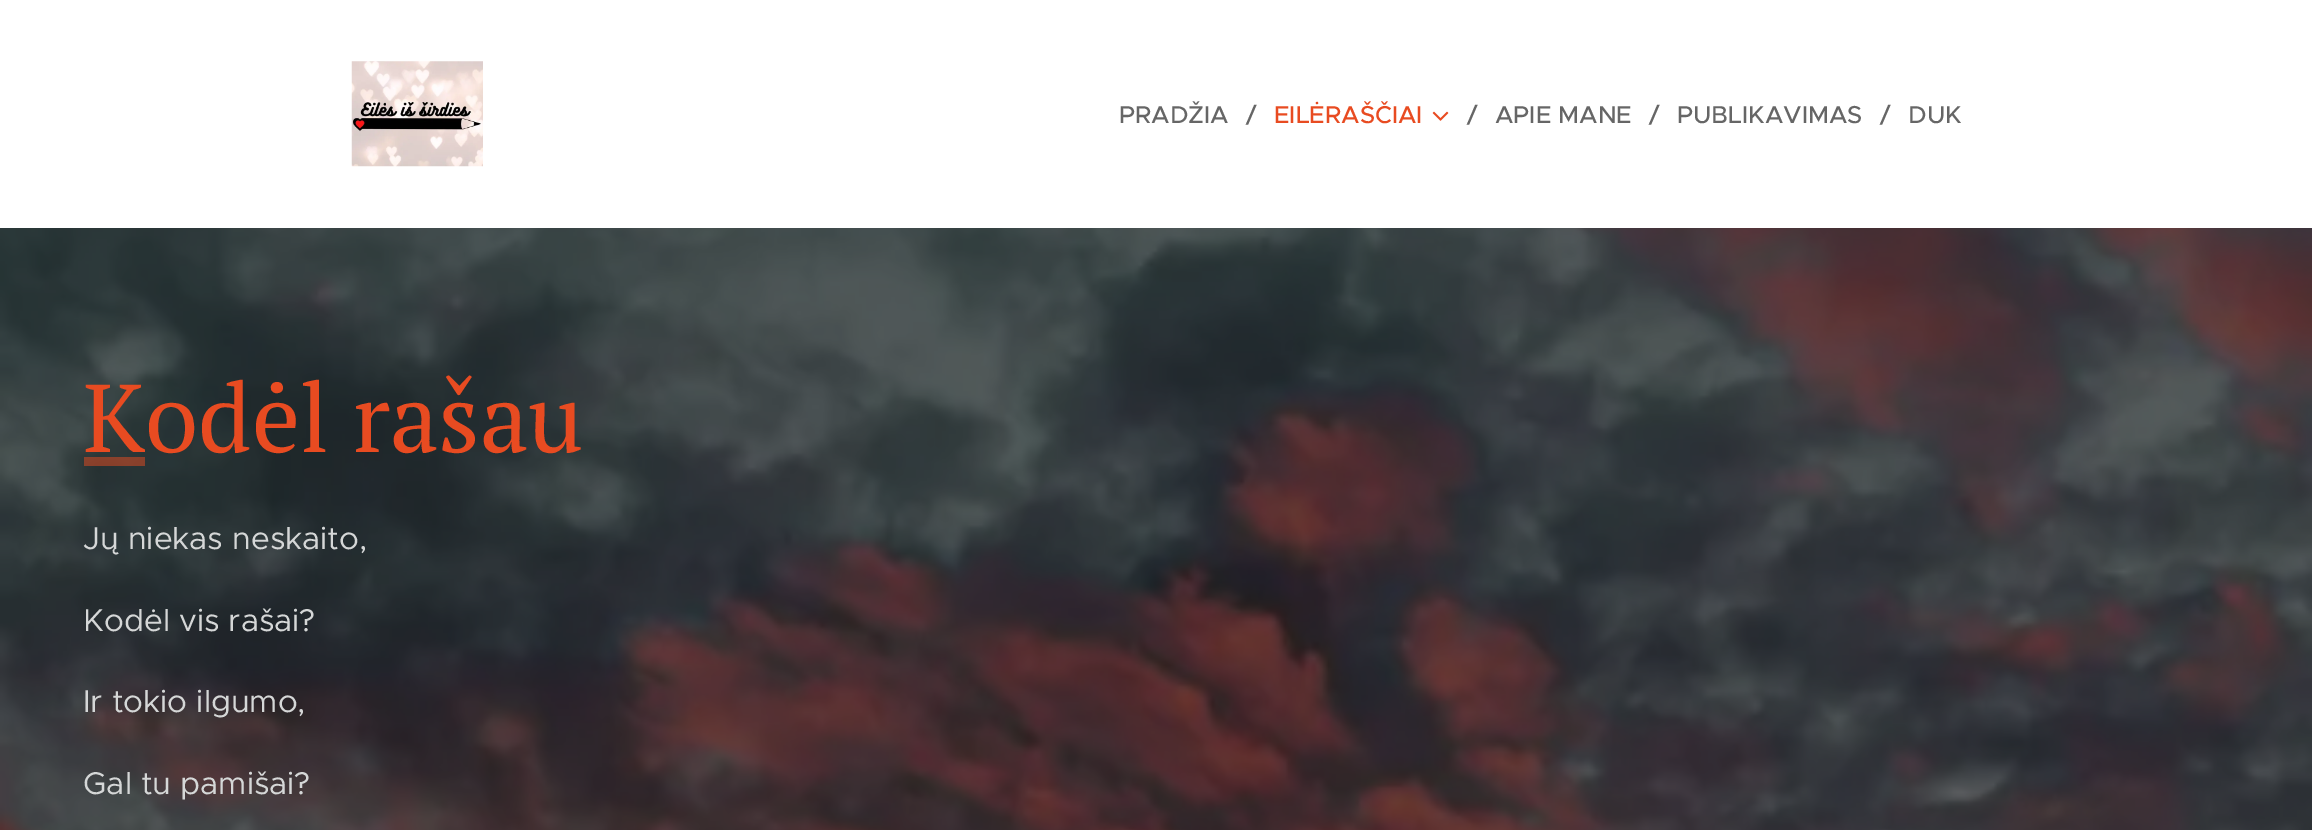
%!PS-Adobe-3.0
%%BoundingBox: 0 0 2312 830
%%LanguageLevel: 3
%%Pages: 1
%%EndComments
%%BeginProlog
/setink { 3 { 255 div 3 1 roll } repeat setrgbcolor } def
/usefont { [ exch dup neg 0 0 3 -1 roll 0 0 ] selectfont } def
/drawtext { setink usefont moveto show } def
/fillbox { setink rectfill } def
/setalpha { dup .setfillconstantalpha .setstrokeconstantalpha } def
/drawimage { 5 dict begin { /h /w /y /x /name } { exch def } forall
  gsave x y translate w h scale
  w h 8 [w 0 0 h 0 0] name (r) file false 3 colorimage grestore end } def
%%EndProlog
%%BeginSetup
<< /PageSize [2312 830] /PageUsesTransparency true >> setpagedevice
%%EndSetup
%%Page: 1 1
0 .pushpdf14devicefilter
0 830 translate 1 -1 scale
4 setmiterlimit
0 0 2312 830 255 255 255 fillbox
(assets/img1.rgb) 351 61 132 106 drawimage
(PRADŽIA) 1119 123 /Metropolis-Medium 24.5 102 102 102 drawtext
(/) 1246 123 /Metropolis-Medium 24.5 102 102 102 drawtext
(EILĖRAŠČIAI) 1274 123 /Metropolis-Medium 24.5 232 75 33 drawtext
(/) 1467 123 /Metropolis-Medium 24.5 102 102 102 drawtext
(assets/img2.rgb) 1432 111 17 10 drawimage
(APIE MANE) 1495 123 /Metropolis-Medium 24.5 102 102 102 drawtext
(/) 1649 123 /Metropolis-Medium 24.5 102 102 102 drawtext
(PUBLIKAVIMAS) 1677 123 /Metropolis-Medium 24.5 102 102 102 drawtext
(/) 1880 123 /Metropolis-Medium 24.5 102 102 102 drawtext
(DUK) 1908 123 /Metropolis-Medium 24.5 102 102 102 drawtext
(assets/img3.rgb) 0 228 2312 602 drawimage
(Kodėl rašau) 83 452 /PTSerif-Regular 96.25 232 75 33 drawtext
0.5 setalpha
84 457 61 9 232 75 33 fillbox
1 setalpha
(Jų niekas neskaito,) 83 549 /Metropolis-Regular 31.5 213 215 215 drawtext
(Kodėl vis rašai?) 83 631 /Metropolis-Regular 31.5 213 215 215 drawtext
(Ir tokio ilgumo,) 83 712 /Metropolis-Regular 31.5 213 215 215 drawtext
(Gal tu pamišai?) 83 794 /Metropolis-Regular 31.5 213 215 215 drawtext
.poppdf14devicefilter showpage
%%EOF
